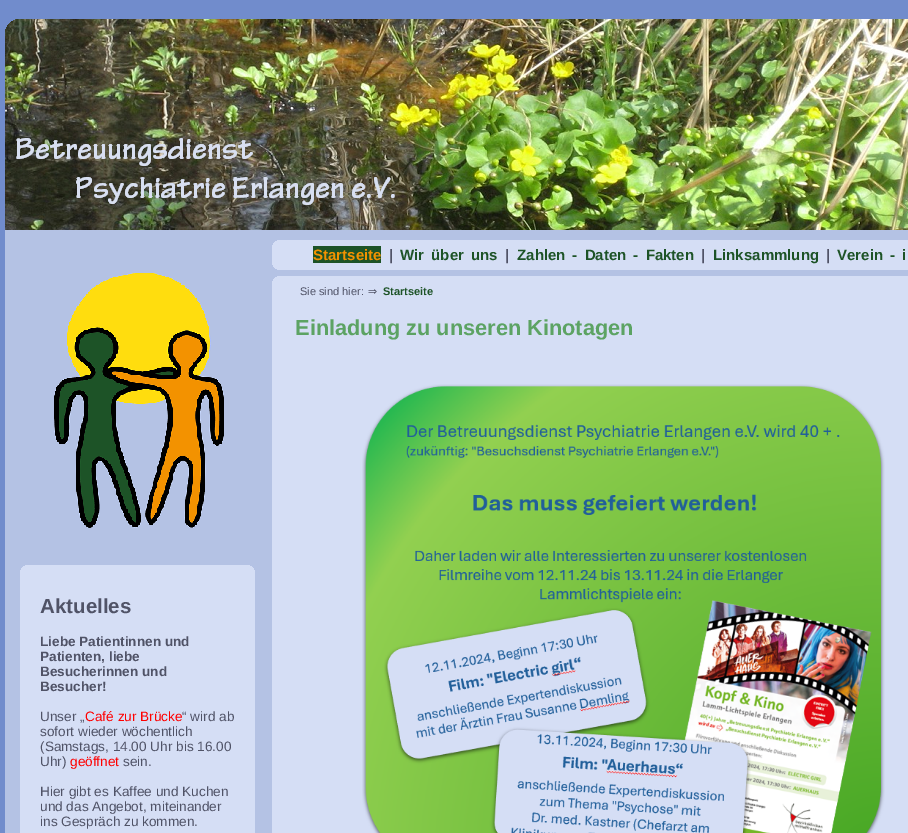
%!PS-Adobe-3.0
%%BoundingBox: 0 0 908 833
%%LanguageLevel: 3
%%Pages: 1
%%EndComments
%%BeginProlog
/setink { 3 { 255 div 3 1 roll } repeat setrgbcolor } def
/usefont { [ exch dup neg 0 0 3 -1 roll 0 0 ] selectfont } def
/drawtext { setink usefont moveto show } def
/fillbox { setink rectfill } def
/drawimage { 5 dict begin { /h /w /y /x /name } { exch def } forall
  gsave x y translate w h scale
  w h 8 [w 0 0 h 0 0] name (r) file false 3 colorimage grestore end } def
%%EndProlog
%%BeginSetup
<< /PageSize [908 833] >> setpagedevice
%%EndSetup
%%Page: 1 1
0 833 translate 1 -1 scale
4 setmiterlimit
0 0 908 833 113 140 204 fillbox
5 230 903 603 180 194 228 fillbox
(assets/img1.rgb) 5 14 245 216 drawimage
(assets/img2.rgb) 250 14 658 216 drawimage
(assets/img3.rgb) 272 240 636 55 drawimage
313 246 68 17 29 83 39 fillbox
(Startseite) 313 260 /LiberationSans-Bold 15 243 146 0 drawtext
(|) 389 260 /LiberationSans-Bold 15 80 83 103 drawtext
29 83 39 setink
400 260 moveto 3 0 32 (Wir über uns) widthshow
(|) 505 260 /LiberationSans-Bold 15 80 83 103 drawtext
29 83 39 setink
517 260 moveto 3 0 32 (Zahlen - Daten - Fakten) widthshow
(|) 701 260 /LiberationSans-Bold 15 80 83 103 drawtext
(Linksammlung) 713 260 /LiberationSans-Bold 15 29 83 39 drawtext
(|) 826 260 /LiberationSans-Bold 15 80 83 103 drawtext
29 83 39 setink
837 260 moveto 3 0 32 (Verein - i) widthshow
272 295 636 538 213 222 245 fillbox
(Sie sind hier:) 300 295 /LiberationSans-Regular 11 80 83 103 drawtext
(⇒) 368 295 /DejaVuSans-Regular 11 80 83 103 drawtext
(Startseite) 383 295 /LiberationSans-Bold 11 29 83 39 drawtext
(Einladung zu unseren Kinotagen) 295 335 /LiberationSans-Bold 21.75 92 163 99 drawtext
(assets/img4.rgb) 362 384 523 449 drawimage
(assets/img5.rgb) 54 273 170 255 drawimage
(assets/img6.rgb) 20 565 235 11 drawimage
20 576 235 257 213 222 245 fillbox
(Aktuelles) 40 613 /LiberationSans-Bold 20.5 80 83 103 drawtext
(Liebe Patientinnen und) 40 646 /LiberationSans-Bold 13.6 80 83 103 drawtext
(Patienten, liebe) 40 661 /LiberationSans-Bold 13.6 80 83 103 drawtext
(Besucherinnen und) 40 676 /LiberationSans-Bold 13.6 80 83 103 drawtext
(Besucher!) 40 691 /LiberationSans-Bold 13.6 80 83 103 drawtext
(Unser „) 40 721 /LiberationSans-Regular 13.6 80 83 103 drawtext
(Café zur Brücke) 85 721 /LiberationSans-Regular 13.6 255 0 0 drawtext
(“ wird ab) 182 721 /LiberationSans-Regular 13.6 80 83 103 drawtext
(sofort wieder wöchentlich) 40 736 /LiberationSans-Regular 13.6 80 83 103 drawtext
(\(Samstags, 14.00 Uhr bis 16.00) 40 751 /LiberationSans-Regular 13.6 80 83 103 drawtext
(Uhr\)) 40 766 /LiberationSans-Regular 13.6 80 83 103 drawtext
(geöffnet) 70 766 /LiberationSans-Regular 13.6 255 0 0 drawtext
(sein.) 123 766 /LiberationSans-Regular 13.6 80 83 103 drawtext
(Hier gibt es Kaffee und Kuchen) 40 796 /LiberationSans-Regular 13.6 80 83 103 drawtext
(und das Angebot, miteinander) 40 811 /LiberationSans-Regular 13.6 80 83 103 drawtext
(ins Gespräch zu kommen.) 40 826 /LiberationSans-Regular 13.6 80 83 103 drawtext
showpage
%%EOF
